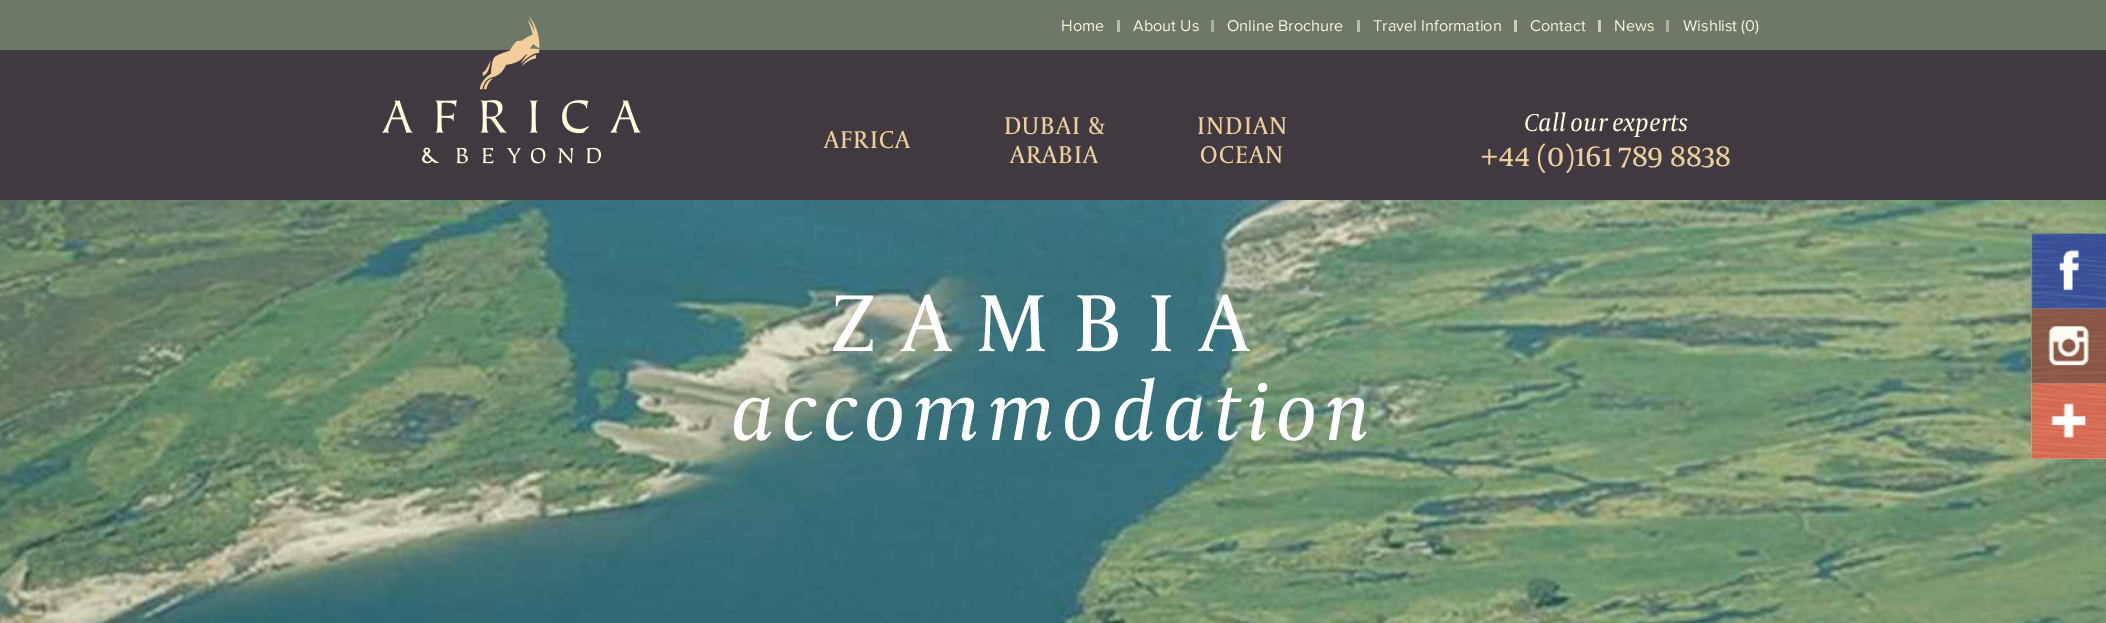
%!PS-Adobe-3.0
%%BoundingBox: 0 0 2106 623
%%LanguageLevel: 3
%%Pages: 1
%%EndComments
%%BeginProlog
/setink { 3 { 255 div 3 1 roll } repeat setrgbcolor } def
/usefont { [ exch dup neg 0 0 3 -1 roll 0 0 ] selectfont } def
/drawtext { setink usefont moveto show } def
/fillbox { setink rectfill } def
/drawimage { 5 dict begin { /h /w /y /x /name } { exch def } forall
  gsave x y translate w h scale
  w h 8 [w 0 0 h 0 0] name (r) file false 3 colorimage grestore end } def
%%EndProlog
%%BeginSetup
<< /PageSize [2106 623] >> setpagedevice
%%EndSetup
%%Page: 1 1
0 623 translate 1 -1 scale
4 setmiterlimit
0 0 2106 623 255 255 255 fillbox
0 0 2106 50 109 120 104 fillbox
1117 20 3 12 186 190 167 fillbox
(Home) 1061 31 /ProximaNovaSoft-Regular 16.25 248 246 217 drawtext
1211 20 3 12 169 175 153 fillbox
(About Us) 1133 31 /ProximaNovaSoft-Regular 16.25 248 246 217 drawtext
1357 20 3 12 186 190 167 fillbox
(Online Brochure) 1227 31 /ProximaNovaSoft-Regular 16.25 248 246 217 drawtext
1514 20 3 12 204 206 181 fillbox
(Travel Information) 1373 31 /ProximaNovaSoft-Regular 16.25 248 246 217 drawtext
1598 20 3 12 204 206 181 fillbox
(Contact) 1530 31 /ProximaNovaSoft-Regular 16.25 248 246 217 drawtext
1666 20 3 12 170 176 153 fillbox
(News) 1614 31 /ProximaNovaSoft-Regular 16.25 248 246 217 drawtext
(Wishlist \(0\)) 1683 31 /ProximaNovaSoft-Regular 16.25 248 246 217 drawtext
0 50 2106 150 65 57 64 fillbox
(assets/img1.rgb) 382 16 259 148 drawimage
/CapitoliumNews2-Regular 25 usefont
233 208 157 setink
824 148 moveto 1.25 0 (AFRICA) ashow
1004 134 moveto 1.25 0 (DUBAI &) ashow
1010 163 moveto 1.25 0 (ARABIA) ashow
1197 134 moveto 1.25 0 (INDIAN) ashow
1200 163 moveto 1.25 0 (OCEAN) ashow
(Call our experts) 1524 131 /CapitoliumNews2-Italic 25 255 253 223 drawtext
(+44 \(0\)161 789 8838) 1481 166 /CapitoliumNews2-Regular 30 233 208 157 drawtext
(assets/img2.rgb) 0 200 2106 423 drawimage
/CapitoliumNews2-Regular 82.5 usefont
255 255 255 setink
831 351 moveto 26.25 0 (ZAMBIA) ashow
/CapitoliumNews2-Italic 82.5 usefont
730 440 moveto 6.25 0 (accommodation) ashow
2031 234 75 225 255 255 255 fillbox
(assets/img3.rgb) 2031 233 75 76 drawimage
(assets/img4.rgb) 2031 308 75 76 drawimage
(assets/img5.rgb) 2031 383 75 76 drawimage
showpage
%%EOF
